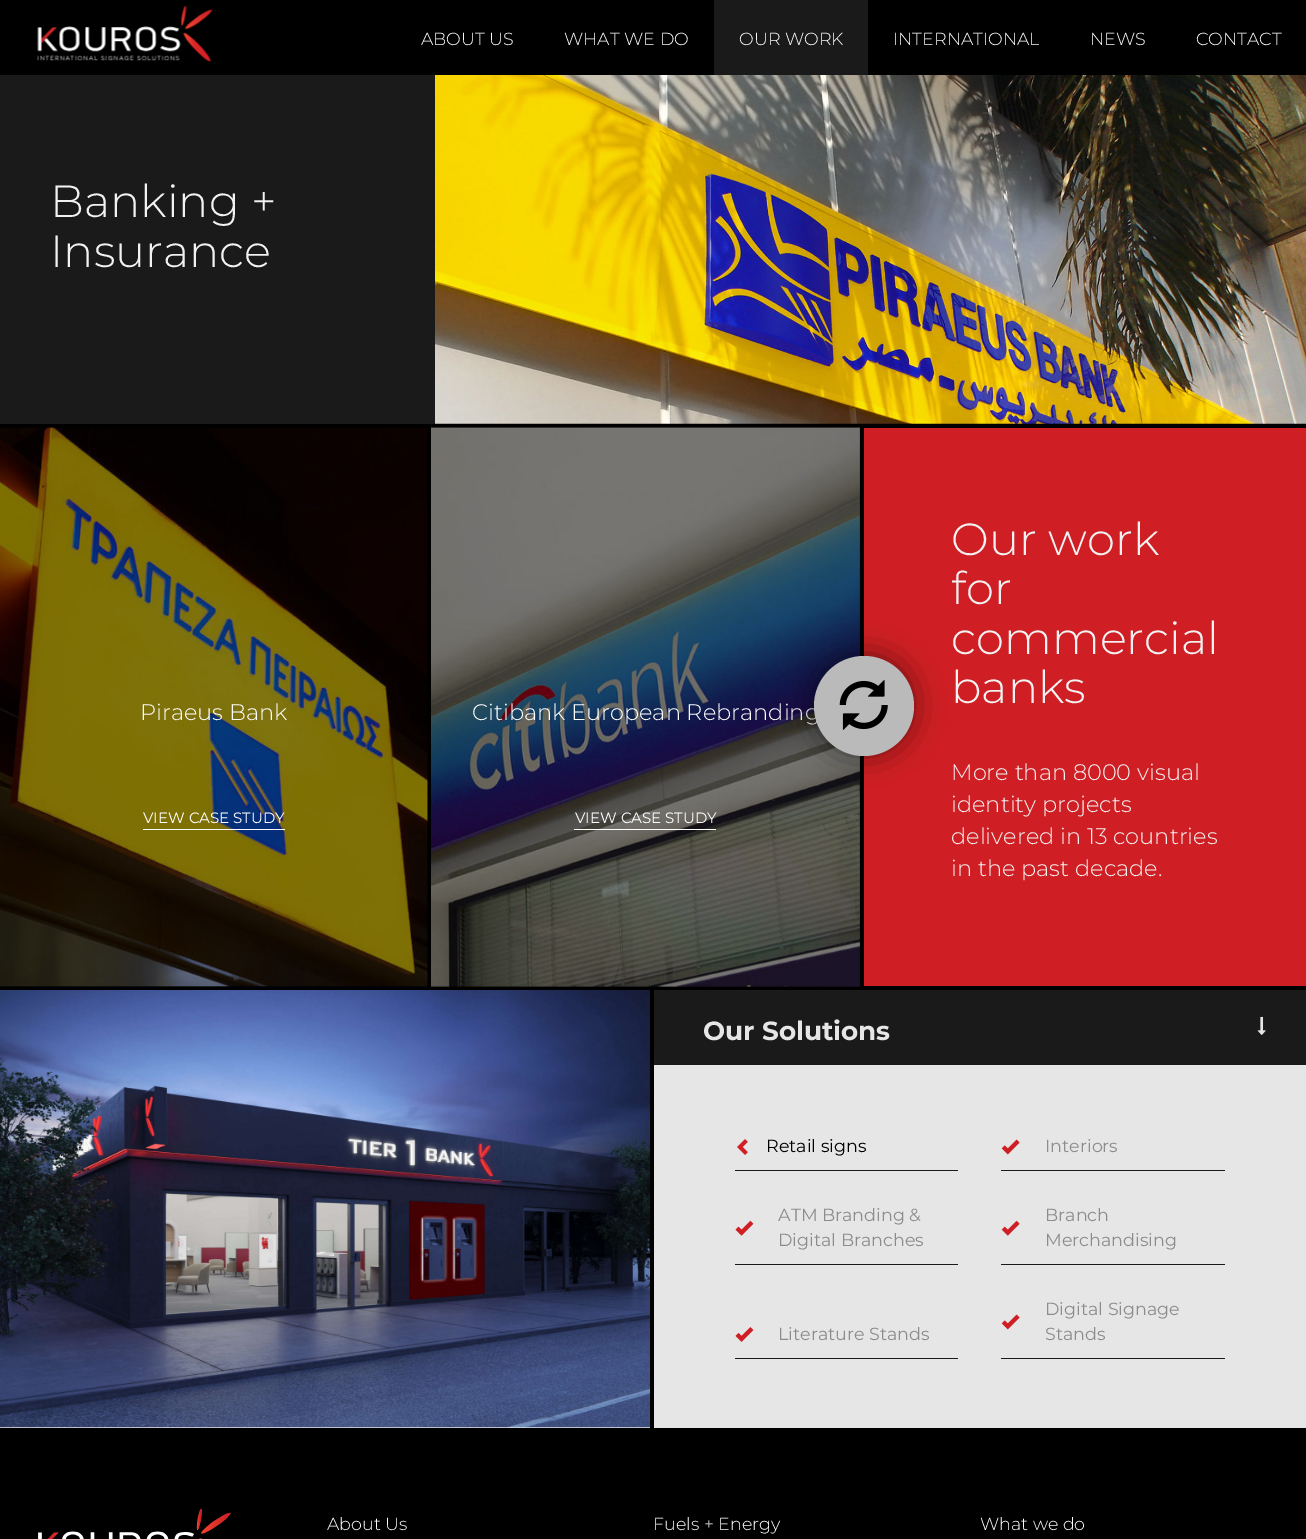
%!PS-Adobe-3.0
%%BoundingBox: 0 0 1306 1539
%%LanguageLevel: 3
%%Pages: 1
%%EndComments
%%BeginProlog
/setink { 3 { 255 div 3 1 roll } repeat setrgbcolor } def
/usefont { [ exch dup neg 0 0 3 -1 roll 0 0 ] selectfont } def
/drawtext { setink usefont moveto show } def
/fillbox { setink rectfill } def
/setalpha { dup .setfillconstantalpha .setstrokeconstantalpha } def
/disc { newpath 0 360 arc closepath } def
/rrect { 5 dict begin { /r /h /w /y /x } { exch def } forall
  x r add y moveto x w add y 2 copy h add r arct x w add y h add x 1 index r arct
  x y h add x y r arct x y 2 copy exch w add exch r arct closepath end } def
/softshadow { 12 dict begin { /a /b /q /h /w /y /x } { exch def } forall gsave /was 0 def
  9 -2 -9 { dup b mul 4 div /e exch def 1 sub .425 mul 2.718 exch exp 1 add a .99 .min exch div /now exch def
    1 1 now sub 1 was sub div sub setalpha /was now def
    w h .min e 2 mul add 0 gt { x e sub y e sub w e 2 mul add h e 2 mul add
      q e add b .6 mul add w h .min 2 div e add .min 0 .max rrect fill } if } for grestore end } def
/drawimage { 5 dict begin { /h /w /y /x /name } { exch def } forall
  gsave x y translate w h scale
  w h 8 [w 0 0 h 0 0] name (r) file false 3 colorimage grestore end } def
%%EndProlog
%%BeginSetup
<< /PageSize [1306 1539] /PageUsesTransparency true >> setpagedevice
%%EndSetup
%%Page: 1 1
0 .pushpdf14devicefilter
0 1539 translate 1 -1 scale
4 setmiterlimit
0 0 1306 1539 0 0 0 fillbox
(assets/img1.rgb) 37 6 176 56 drawimage
(ABOUT US) 421 45 /Montserrat-Light 17.5 255 255 255 drawtext
(WHAT WE DO) 564 45 /Montserrat-Light 17.5 255 255 255 drawtext
714 0 154 75 26 26 26 fillbox
(OUR WORK) 739 45 /Montserrat-Light 17.5 255 255 255 drawtext
(INTERNATIONAL) 893 45 /Montserrat-Light 17.5 255 255 255 drawtext
(NEWS) 1090 45 /Montserrat-Light 17.5 255 255 255 drawtext
(CONTACT) 1196 45 /Montserrat-Light 17.5 255 255 255 drawtext
0 75 435 349 26 26 26 fillbox
(Banking +) 50 217 /Montserrat-Light 45 242 242 242 drawtext
(Insurance) 50 267 /Montserrat-Light 45 242 242 242 drawtext
(assets/img2.rgb) 435 75 871 349 drawimage
(assets/img3.rgb) 0 427 428 560 drawimage
(Piraeus Bank) 140 720 /Montserrat-Light 22.5 255 255 255 drawtext
143 829 142 1 255 255 255 fillbox
(VIEW CASE STUDY) 143 823 /Montserrat-Regular 15 255 255 255 drawtext
(assets/img4.rgb) 431 427 429 560 drawimage
(Citibank European Rebranding) 472 720 /Montserrat-Light 22.5 255 255 255 drawtext
574 829 142 1 255 255 255 fillbox
(VIEW CASE STUDY) 575 823 /Montserrat-Regular 15 255 255 255 drawtext
864 428 442 558 208 31 36 fillbox
0 0 0 setink
813 655 100 100 50 15.5 0.5 softshadow
186 186 186 setink
864 706 50 disc fill
(assets/img5.rgb) 839 680 49 50 drawimage
(Our work) 951 555 /Montserrat-Light 45 242 242 242 drawtext
(for) 951 604 /Montserrat-Light 45 242 242 242 drawtext
(commercial) 951 654 /Montserrat-Light 45 242 242 242 drawtext
(banks) 951 703 /Montserrat-Light 45 242 242 242 drawtext
(More than 8000 visual) 951 780 /Montserrat-Light 22.5 242 242 242 drawtext
(identity projects) 951 812 /Montserrat-Light 22.5 242 242 242 drawtext
(delivered in 13 countries) 951 844 /Montserrat-Light 22.5 242 242 242 drawtext
(in the past decade.) 951 876 /Montserrat-Light 22.5 242 242 242 drawtext
0 1065 1306 363 230 230 230 fillbox
650 1065 4 363 0 0 0 fillbox
(assets/img6.rgb) 0 990 650 438 drawimage
654 990 652 75 26 26 26 fillbox
(Our Solutions) 703 1040 /Montserrat-Bold 26.25 230 230 230 drawtext
(assets/img7.rgb) 1257 1016 9 19 drawimage
(assets/img8.rgb) 737 1139 11 16 drawimage
(Retail signs) 766 1152 /Montserrat-Regular 17.5 0 0 0 drawtext
735 1170 223 1 26 26 26 fillbox
(assets/img9.rgb) 1001 1139 19 16 drawimage
(Interiors) 1045 1152 /Montserrat-Regular 17.5 140 140 140 drawtext
1001 1170 224 1 26 26 26 fillbox
(assets/img10.rgb) 735 1220 19 16 drawimage
(ATM Branding &) 778 1221 /Montserrat-Regular 17.5 140 140 140 drawtext
(Digital Branches) 778 1246 /Montserrat-Regular 17.5 140 140 140 drawtext
735 1264 223 1 26 26 26 fillbox
(assets/img11.rgb) 1001 1220 19 16 drawimage
(Branch) 1045 1221 /Montserrat-Regular 17.5 140 140 140 drawtext
(Merchandising) 1045 1246 /Montserrat-Regular 17.5 140 140 140 drawtext
1001 1264 224 1 26 26 26 fillbox
(assets/img12.rgb) 735 1327 19 15 drawimage
(Literature Stands) 778 1340 /Montserrat-Regular 17.5 140 140 140 drawtext
735 1358 223 1 26 26 26 fillbox
(assets/img9.rgb) 1001 1314 19 16 drawimage
(Digital Signage) 1045 1315 /Montserrat-Regular 17.5 140 140 140 drawtext
(Stands) 1045 1340 /Montserrat-Regular 17.5 140 140 140 drawtext
1001 1358 224 1 26 26 26 fillbox
(assets/img13.rgb) 38 1509 193 30 drawimage
(About Us) 327 1530 /Montserrat-Light 17.5 255 255 255 drawtext
(Fuels + Energy) 653 1530 /Montserrat-Light 17.5 255 255 255 drawtext
(What we do) 980 1530 /Montserrat-Light 17.5 255 255 255 drawtext
.poppdf14devicefilter showpage
%%EOF
